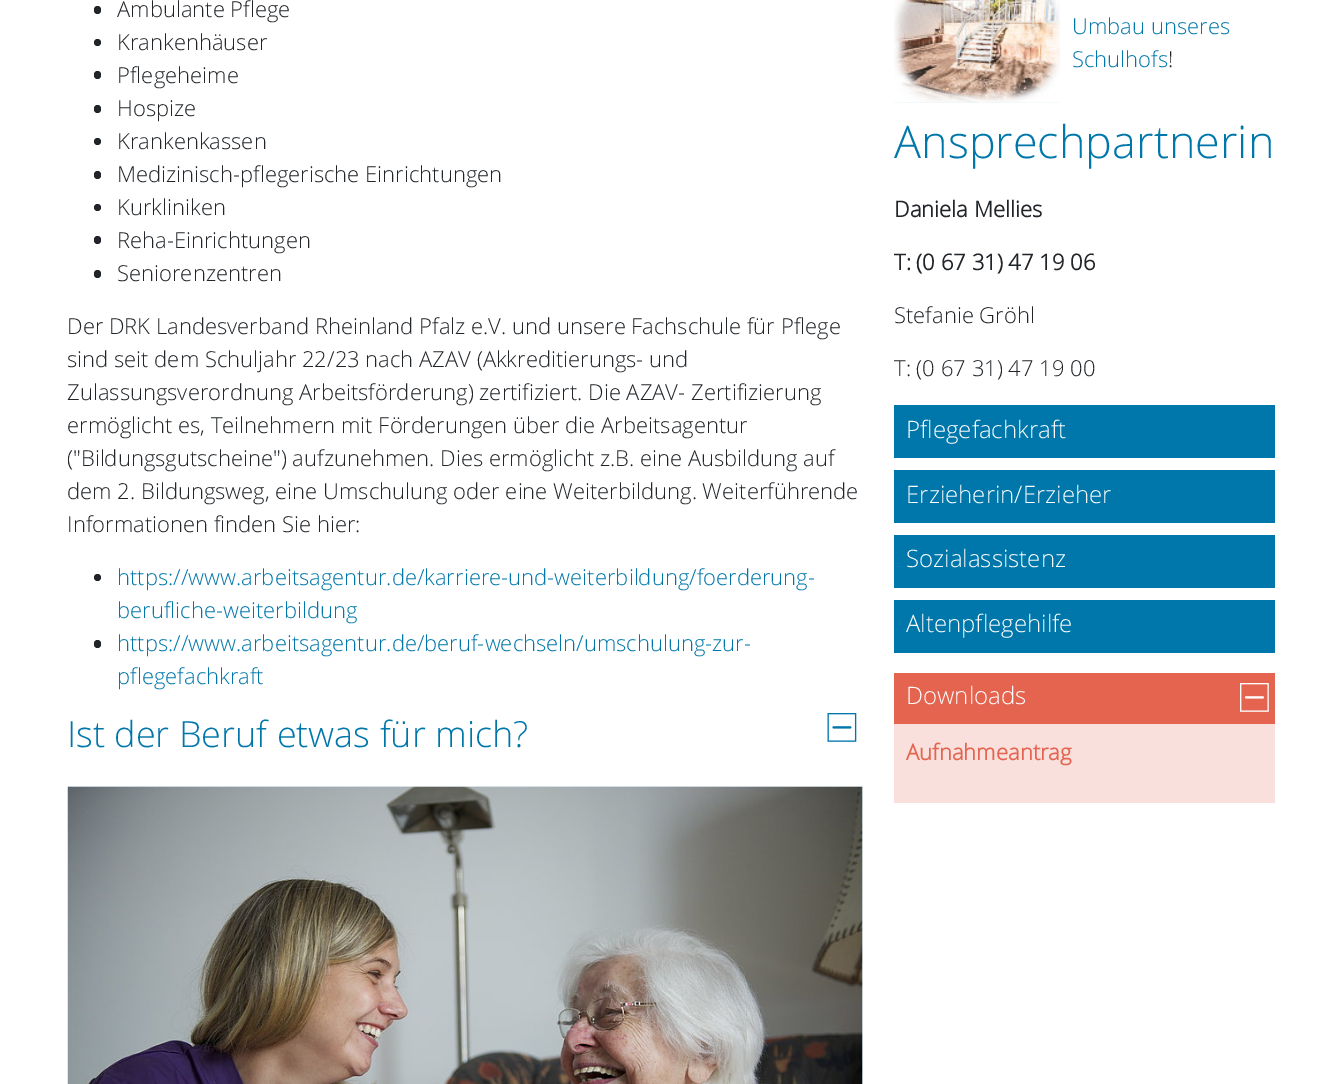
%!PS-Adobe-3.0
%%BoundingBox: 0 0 1342 1084
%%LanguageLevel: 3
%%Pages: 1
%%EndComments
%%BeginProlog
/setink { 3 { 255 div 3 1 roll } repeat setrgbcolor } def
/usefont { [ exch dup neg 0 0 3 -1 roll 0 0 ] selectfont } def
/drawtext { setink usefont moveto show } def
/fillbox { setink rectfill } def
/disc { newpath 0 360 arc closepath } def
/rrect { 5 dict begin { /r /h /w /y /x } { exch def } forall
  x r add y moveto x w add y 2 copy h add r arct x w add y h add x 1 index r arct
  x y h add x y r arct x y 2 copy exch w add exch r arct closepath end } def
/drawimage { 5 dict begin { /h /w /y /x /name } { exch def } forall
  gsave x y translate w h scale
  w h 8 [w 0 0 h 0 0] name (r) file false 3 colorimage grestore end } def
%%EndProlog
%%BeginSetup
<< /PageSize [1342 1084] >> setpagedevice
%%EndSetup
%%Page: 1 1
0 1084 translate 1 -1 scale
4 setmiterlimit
0 0 1342 1084 255 255 255 fillbox
33 37 41 setink
94 6 7 8 3.5 rrect fill
(Ambulante Pflege) 117 17 /OpenSans-Light 22 33 37 41 drawtext
97.5 42.5 3.5 disc fill
(Krankenhäuser) 117 50 /OpenSans-Light 22 33 37 41 drawtext
94 71 7 8 3.5 rrect fill
(Pflegeheime) 117 83 /OpenSans-Light 22 33 37 41 drawtext
94 105 7 8 3.5 rrect fill
(Hospize) 117 116 /OpenSans-Light 22 33 37 41 drawtext
97.5 141.5 3.5 disc fill
(Krankenkassen) 117 149 /OpenSans-Light 22 33 37 41 drawtext
94 171 7 8 3.5 rrect fill
(Medizinisch-pflegerische Einrichtungen) 117 182 /OpenSans-Light 22 33 37 41 drawtext
97.5 207.5 3.5 disc fill
(Kurkliniken) 117 215 /OpenSans-Light 22 33 37 41 drawtext
94 236 7 8 3.5 rrect fill
(Reha-Einrichtungen) 117 248 /OpenSans-Light 22 33 37 41 drawtext
94 270 7 8 3.5 rrect fill
(Seniorenzentren) 117 281 /OpenSans-Light 22 33 37 41 drawtext
(Der DRK Landesverband Rheinland Pfalz e.V. und unsere Fachschule für Pflege) 67 334 /OpenSans-Light 22 33 37 41 drawtext
(sind seit dem Schuljahr 22/23 nach AZAV \(Akkreditierungs- und) 67 367 /OpenSans-Light 22 33 37 41 drawtext
(Zulassungsverordnung Arbeitsförderung\) zertifiziert. Die AZAV- Zertifizierung) 67 400 /OpenSans-Light 22 33 37 41 drawtext
(ermöglicht es, Teilnehmern mit Förderungen über die Arbeitsagentur) 67 433 /OpenSans-Light 22 33 37 41 drawtext
gsave
68 0 795 713 rectclip
(\("Bildungsgutscheine"\) aufzunehmen. Dies ermöglicht z.B. eine Ausbildung auf) 67 466 /OpenSans-Light 22 33 37 41 drawtext
grestore
(dem 2. Bildungsweg, eine Umschulung oder eine Weiterbildung. Weiterführende) 67 499 /OpenSans-Light 22 33 37 41 drawtext
(Informationen finden Sie hier:) 67 532 /OpenSans-Light 22 33 37 41 drawtext
97.5 577.5 3.5 disc fill
(https://www.arbeitsagentur.de/karriere-und-weiterbildung/foerderung-) 117 585 /OpenSans-Light 22 0 119 171 drawtext
(berufliche-weiterbildung) 117 618 /OpenSans-Light 22 0 119 171 drawtext
33 37 41 setink
94 640 7 8 3.5 rrect fill
(https://www.arbeitsagentur.de/beruf-wechseln/umschulung-zur-) 117 651 /OpenSans-Light 22 0 119 171 drawtext
(pflegefachkraft) 117 684 /OpenSans-Light 22 0 119 171 drawtext
(Ist der Beruf etwas für mich?) 67 747 /OpenSans-Light 36 0 119 171 drawtext
(assets/img1.rgb) 827 713 30 29 drawimage
68 786 795 298 229 241 247 fillbox
(assets/img2.rgb) 67 786 796 298 drawimage
894 102 166 1 229 241 247 fillbox
(assets/img3.rgb) 894 0 166 103 drawimage
(Umbau unseres) 1072 34 /OpenSans-Light 22 0 119 171 drawtext
(Schulhofs) 1072 67 /OpenSans-Light 22 0 119 171 drawtext
(!) 1168 67 /OpenSans-Light 22 33 37 41 drawtext
(Ansprechpartnerin) 894 158 /OpenSans-Light 45 0 119 171 drawtext
(Daniela Mellies) 894 217 /OpenSans-Bold 22 33 37 41 drawtext
(T: \(0 67 31\) 47 19 06) 894 270 /OpenSans-Bold 22 33 37 41 drawtext
(Stefanie Gröhl) 894 323 /OpenSans-Light 22 33 37 41 drawtext
(T: \(0 67 31\) 47 19 00) 894 376 /OpenSans-Light 22 33 37 41 drawtext
894 405 381 53 0 119 171 fillbox
(Pflegefachkraft) 906 438 /OpenSans-Light 24 255 255 255 drawtext
894 470 381 53 0 119 171 fillbox
(Erzieherin/Erzieher) 906 503 /OpenSans-Light 24 255 255 255 drawtext
894 535 381 53 0 119 171 fillbox
(Sozialassistenz) 906 567 /OpenSans-Light 24 255 255 255 drawtext
894 600 381 53 0 119 171 fillbox
(Altenpflegehilfe) 906 632 /OpenSans-Light 24 255 255 255 drawtext
894 724 381 79 250 224 220 fillbox
894 673 381 51 228 100 80 fillbox
(Downloads) 906 704 /OpenSans-Light 24 255 255 255 drawtext
(assets/img4.rgb) 1240 683 29 29 drawimage
(Aufnahmeantrag) 906 760 /OpenSans-Bold 22 228 100 80 drawtext
showpage
%%EOF
